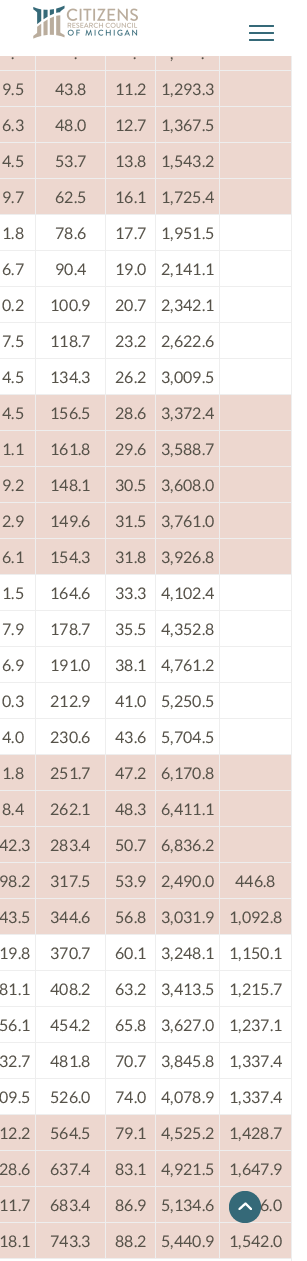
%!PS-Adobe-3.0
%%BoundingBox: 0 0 307 1261
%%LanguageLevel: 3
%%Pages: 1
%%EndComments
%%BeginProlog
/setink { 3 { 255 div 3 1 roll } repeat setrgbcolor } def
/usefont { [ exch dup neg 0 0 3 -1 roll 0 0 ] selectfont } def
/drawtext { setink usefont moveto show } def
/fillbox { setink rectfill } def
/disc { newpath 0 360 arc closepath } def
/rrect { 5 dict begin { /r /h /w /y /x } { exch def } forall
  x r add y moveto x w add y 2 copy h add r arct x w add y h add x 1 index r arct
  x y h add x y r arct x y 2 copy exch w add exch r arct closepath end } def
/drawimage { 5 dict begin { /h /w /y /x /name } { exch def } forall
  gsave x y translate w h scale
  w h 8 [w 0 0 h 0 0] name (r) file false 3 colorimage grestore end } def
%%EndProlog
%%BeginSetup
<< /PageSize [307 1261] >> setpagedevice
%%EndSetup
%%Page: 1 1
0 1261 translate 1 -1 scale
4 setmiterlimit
0 0 307 1261 255 255 255 fillbox
(assets/img1.rgb) 33 5 105 34 drawimage
53 105 120 setink
249 25 25 2 1 rrect fill
249 32 25 2 1 rrect fill
249 39 25 2 1 rrect fill
0 56 35 14 237 215 207 fillbox
(.) 11 59 /Lato-Regular 16 86 82 73 drawtext
36 56 69 14 237 215 207 fillbox
219 70 73 1 238 238 238 fillbox
219 106 73 1 238 238 238 fillbox
219 142 73 1 238 238 238 fillbox
219 178 73 1 238 238 238 fillbox
219 214 73 1 238 238 238 fillbox
219 250 73 1 238 238 238 fillbox
219 286 73 1 238 238 238 fillbox
219 322 73 1 238 238 238 fillbox
219 358 73 1 238 238 238 fillbox
219 394 73 1 238 238 238 fillbox
219 430 73 1 238 238 238 fillbox
219 466 73 1 238 238 238 fillbox
219 502 73 1 238 238 238 fillbox
219 538 73 1 238 238 238 fillbox
219 574 73 1 238 238 238 fillbox
219 610 73 1 238 238 238 fillbox
219 646 73 1 238 238 238 fillbox
219 682 73 1 238 238 238 fillbox
219 718 73 1 238 238 238 fillbox
219 754 73 1 238 238 238 fillbox
219 790 73 1 238 238 238 fillbox
219 826 73 1 238 238 238 fillbox
219 862 73 1 238 238 238 fillbox
219 898 73 1 238 238 238 fillbox
219 934 73 1 238 238 238 fillbox
219 970 73 1 238 238 238 fillbox
219 1006 73 1 238 238 238 fillbox
219 1042 73 1 238 238 238 fillbox
219 1078 73 1 238 238 238 fillbox
219 1114 73 1 238 238 238 fillbox
219 1150 73 1 238 238 238 fillbox
219 1186 73 1 238 238 238 fillbox
219 1222 73 1 238 238 238 fillbox
0 1258 292 1 238 238 238 fillbox
219 1222 1 37 238 238 238 fillbox
155 1222 65 1 238 238 238 fillbox
219 1186 1 37 238 238 238 fillbox
155 1186 65 1 238 238 238 fillbox
219 1150 1 37 238 238 238 fillbox
155 1150 65 1 238 238 238 fillbox
219 1114 1 37 238 238 238 fillbox
155 1114 65 1 238 238 238 fillbox
219 1078 1 37 238 238 238 fillbox
155 1078 65 1 238 238 238 fillbox
219 1042 1 37 238 238 238 fillbox
155 1042 65 1 238 238 238 fillbox
219 1006 1 37 238 238 238 fillbox
155 1006 65 1 238 238 238 fillbox
219 970 1 37 238 238 238 fillbox
155 970 65 1 238 238 238 fillbox
219 934 1 37 238 238 238 fillbox
155 934 65 1 238 238 238 fillbox
219 898 1 37 238 238 238 fillbox
155 898 65 1 238 238 238 fillbox
219 862 1 37 238 238 238 fillbox
155 862 65 1 238 238 238 fillbox
219 826 1 37 238 238 238 fillbox
155 826 65 1 238 238 238 fillbox
219 790 1 37 238 238 238 fillbox
155 790 65 1 238 238 238 fillbox
219 754 1 37 238 238 238 fillbox
155 754 65 1 238 238 238 fillbox
219 718 1 37 238 238 238 fillbox
155 718 65 1 238 238 238 fillbox
219 682 1 37 238 238 238 fillbox
155 682 65 1 238 238 238 fillbox
219 646 1 37 238 238 238 fillbox
155 646 65 1 238 238 238 fillbox
219 610 1 37 238 238 238 fillbox
155 610 65 1 238 238 238 fillbox
219 574 1 37 238 238 238 fillbox
155 574 65 1 238 238 238 fillbox
219 538 1 37 238 238 238 fillbox
155 538 65 1 238 238 238 fillbox
219 502 1 37 238 238 238 fillbox
155 502 65 1 238 238 238 fillbox
219 466 1 37 238 238 238 fillbox
155 466 65 1 238 238 238 fillbox
219 430 1 37 238 238 238 fillbox
155 430 65 1 238 238 238 fillbox
219 394 1 37 238 238 238 fillbox
155 394 65 1 238 238 238 fillbox
219 358 1 37 238 238 238 fillbox
155 358 65 1 238 238 238 fillbox
219 322 1 37 238 238 238 fillbox
155 322 65 1 238 238 238 fillbox
219 286 1 37 238 238 238 fillbox
155 286 65 1 238 238 238 fillbox
219 250 1 37 238 238 238 fillbox
155 250 65 1 238 238 238 fillbox
219 214 1 37 238 238 238 fillbox
155 214 65 1 238 238 238 fillbox
219 178 1 37 238 238 238 fillbox
155 178 65 1 238 238 238 fillbox
219 142 1 37 238 238 238 fillbox
155 142 65 1 238 238 238 fillbox
219 106 1 37 238 238 238 fillbox
155 106 65 1 238 238 238 fillbox
219 70 1 37 238 238 238 fillbox
155 70 65 1 238 238 238 fillbox
155 1222 1 37 238 238 238 fillbox
105 1222 51 1 238 238 238 fillbox
155 1186 1 37 238 238 238 fillbox
105 1186 51 1 238 238 238 fillbox
155 1150 1 37 238 238 238 fillbox
105 1150 51 1 238 238 238 fillbox
155 1114 1 37 238 238 238 fillbox
105 1114 51 1 238 238 238 fillbox
155 1078 1 37 238 238 238 fillbox
105 1078 51 1 238 238 238 fillbox
155 1042 1 37 238 238 238 fillbox
105 1042 51 1 238 238 238 fillbox
155 1006 1 37 238 238 238 fillbox
105 1006 51 1 238 238 238 fillbox
155 970 1 37 238 238 238 fillbox
105 970 51 1 238 238 238 fillbox
155 934 1 37 238 238 238 fillbox
105 934 51 1 238 238 238 fillbox
155 898 1 37 238 238 238 fillbox
105 898 51 1 238 238 238 fillbox
155 862 1 37 238 238 238 fillbox
105 862 51 1 238 238 238 fillbox
155 826 1 37 238 238 238 fillbox
105 826 51 1 238 238 238 fillbox
155 790 1 37 238 238 238 fillbox
105 790 51 1 238 238 238 fillbox
155 754 1 37 238 238 238 fillbox
105 754 51 1 238 238 238 fillbox
155 718 1 37 238 238 238 fillbox
105 718 51 1 238 238 238 fillbox
155 682 1 37 238 238 238 fillbox
105 682 51 1 238 238 238 fillbox
155 646 1 37 238 238 238 fillbox
105 646 51 1 238 238 238 fillbox
155 610 1 37 238 238 238 fillbox
105 610 51 1 238 238 238 fillbox
155 574 1 37 238 238 238 fillbox
105 574 51 1 238 238 238 fillbox
155 538 1 37 238 238 238 fillbox
105 538 51 1 238 238 238 fillbox
155 502 1 37 238 238 238 fillbox
105 502 51 1 238 238 238 fillbox
155 466 1 37 238 238 238 fillbox
105 466 51 1 238 238 238 fillbox
155 430 1 37 238 238 238 fillbox
105 430 51 1 238 238 238 fillbox
155 394 1 37 238 238 238 fillbox
105 394 51 1 238 238 238 fillbox
155 358 1 37 238 238 238 fillbox
105 358 51 1 238 238 238 fillbox
155 322 1 37 238 238 238 fillbox
105 322 51 1 238 238 238 fillbox
155 286 1 37 238 238 238 fillbox
105 286 51 1 238 238 238 fillbox
155 250 1 37 238 238 238 fillbox
105 250 51 1 238 238 238 fillbox
155 214 1 37 238 238 238 fillbox
105 214 51 1 238 238 238 fillbox
155 178 1 37 238 238 238 fillbox
105 178 51 1 238 238 238 fillbox
155 142 1 37 238 238 238 fillbox
105 142 51 1 238 238 238 fillbox
155 106 1 37 238 238 238 fillbox
105 106 51 1 238 238 238 fillbox
155 70 1 37 238 238 238 fillbox
105 70 51 1 238 238 238 fillbox
105 1222 1 37 238 238 238 fillbox
35 1222 71 1 238 238 238 fillbox
105 1186 1 37 238 238 238 fillbox
35 1186 71 1 238 238 238 fillbox
105 1150 1 37 238 238 238 fillbox
35 1150 71 1 238 238 238 fillbox
105 1114 1 37 238 238 238 fillbox
35 1114 71 1 238 238 238 fillbox
105 1078 1 37 238 238 238 fillbox
35 1078 71 1 238 238 238 fillbox
105 1042 1 37 238 238 238 fillbox
35 1042 71 1 238 238 238 fillbox
105 1006 1 37 238 238 238 fillbox
35 1006 71 1 238 238 238 fillbox
105 970 1 37 238 238 238 fillbox
35 970 71 1 238 238 238 fillbox
105 934 1 37 238 238 238 fillbox
35 934 71 1 238 238 238 fillbox
105 898 1 37 238 238 238 fillbox
35 898 71 1 238 238 238 fillbox
105 862 1 37 238 238 238 fillbox
35 862 71 1 238 238 238 fillbox
105 826 1 37 238 238 238 fillbox
35 826 71 1 238 238 238 fillbox
105 790 1 37 238 238 238 fillbox
35 790 71 1 238 238 238 fillbox
105 754 1 37 238 238 238 fillbox
35 754 71 1 238 238 238 fillbox
105 718 1 37 238 238 238 fillbox
35 718 71 1 238 238 238 fillbox
105 682 1 37 238 238 238 fillbox
35 682 71 1 238 238 238 fillbox
105 646 1 37 238 238 238 fillbox
35 646 71 1 238 238 238 fillbox
105 610 1 37 238 238 238 fillbox
35 610 71 1 238 238 238 fillbox
105 574 1 37 238 238 238 fillbox
35 574 71 1 238 238 238 fillbox
105 538 1 37 238 238 238 fillbox
35 538 71 1 238 238 238 fillbox
105 502 1 37 238 238 238 fillbox
35 502 71 1 238 238 238 fillbox
105 466 1 37 238 238 238 fillbox
35 466 71 1 238 238 238 fillbox
105 430 1 37 238 238 238 fillbox
35 430 71 1 238 238 238 fillbox
105 394 1 37 238 238 238 fillbox
35 394 71 1 238 238 238 fillbox
105 358 1 37 238 238 238 fillbox
35 358 71 1 238 238 238 fillbox
105 322 1 37 238 238 238 fillbox
35 322 71 1 238 238 238 fillbox
105 286 1 37 238 238 238 fillbox
35 286 71 1 238 238 238 fillbox
105 250 1 37 238 238 238 fillbox
35 250 71 1 238 238 238 fillbox
105 214 1 37 238 238 238 fillbox
35 214 71 1 238 238 238 fillbox
105 178 1 37 238 238 238 fillbox
35 178 71 1 238 238 238 fillbox
105 142 1 37 238 238 238 fillbox
35 142 71 1 238 238 238 fillbox
105 106 1 37 238 238 238 fillbox
35 106 71 1 238 238 238 fillbox
105 70 1 37 238 238 238 fillbox
35 70 71 1 238 238 238 fillbox
35 1222 1 37 238 238 238 fillbox
0 1222 36 1 238 238 238 fillbox
35 1186 1 37 238 238 238 fillbox
0 1186 36 1 238 238 238 fillbox
35 1150 1 37 238 238 238 fillbox
0 1150 36 1 238 238 238 fillbox
35 1114 1 37 238 238 238 fillbox
0 1114 36 1 238 238 238 fillbox
35 1078 1 37 238 238 238 fillbox
0 1078 36 1 238 238 238 fillbox
35 1042 1 37 238 238 238 fillbox
0 1042 36 1 238 238 238 fillbox
35 1006 1 37 238 238 238 fillbox
0 1006 36 1 238 238 238 fillbox
35 970 1 37 238 238 238 fillbox
0 970 36 1 238 238 238 fillbox
35 934 1 37 238 238 238 fillbox
0 934 36 1 238 238 238 fillbox
35 898 1 37 238 238 238 fillbox
0 898 36 1 238 238 238 fillbox
35 862 1 37 238 238 238 fillbox
0 862 36 1 238 238 238 fillbox
35 826 1 37 238 238 238 fillbox
0 826 36 1 238 238 238 fillbox
35 790 1 37 238 238 238 fillbox
0 790 36 1 238 238 238 fillbox
35 754 1 37 238 238 238 fillbox
0 754 36 1 238 238 238 fillbox
35 718 1 37 238 238 238 fillbox
0 718 36 1 238 238 238 fillbox
35 682 1 37 238 238 238 fillbox
0 682 36 1 238 238 238 fillbox
35 646 1 37 238 238 238 fillbox
0 646 36 1 238 238 238 fillbox
35 610 1 37 238 238 238 fillbox
0 610 36 1 238 238 238 fillbox
35 574 1 37 238 238 238 fillbox
0 574 36 1 238 238 238 fillbox
35 538 1 37 238 238 238 fillbox
0 538 36 1 238 238 238 fillbox
35 502 1 37 238 238 238 fillbox
0 502 36 1 238 238 238 fillbox
35 466 1 37 238 238 238 fillbox
0 466 36 1 238 238 238 fillbox
35 430 1 37 238 238 238 fillbox
0 430 36 1 238 238 238 fillbox
35 394 1 37 238 238 238 fillbox
0 394 36 1 238 238 238 fillbox
35 358 1 37 238 238 238 fillbox
0 358 36 1 238 238 238 fillbox
35 322 1 37 238 238 238 fillbox
0 322 36 1 238 238 238 fillbox
35 286 1 37 238 238 238 fillbox
0 286 36 1 238 238 238 fillbox
35 250 1 37 238 238 238 fillbox
0 250 36 1 238 238 238 fillbox
35 214 1 37 238 238 238 fillbox
0 214 36 1 238 238 238 fillbox
35 178 1 37 238 238 238 fillbox
0 178 36 1 238 238 238 fillbox
35 142 1 37 238 238 238 fillbox
0 142 36 1 238 238 238 fillbox
35 106 1 37 238 238 238 fillbox
0 106 36 1 238 238 238 fillbox
35 70 1 37 238 238 238 fillbox
0 70 36 1 238 238 238 fillbox
35 56 1 15 238 238 238 fillbox
(.) 74 59 /Lato-Regular 16 86 82 73 drawtext
106 56 49 14 237 215 207 fillbox
105 56 1 15 238 238 238 fillbox
(.) 133 59 /Lato-Regular 16 86 82 73 drawtext
156 56 63 14 237 215 207 fillbox
155 56 1 15 238 238 238 fillbox
(,) 170 59 /Lato-Regular 16 86 82 73 drawtext
(.) 201 59 /Lato-Regular 16 86 82 73 drawtext
220 56 71 14 237 215 207 fillbox
219 56 1 15 238 238 238 fillbox
0 71 35 35 237 215 207 fillbox
(9.5) 2 95 /Lato-Regular 16 86 82 73 drawtext
36 71 69 35 237 215 207 fillbox
(43.8) 55 95 /Lato-Regular 16 86 82 73 drawtext
106 71 49 35 237 215 207 fillbox
(11.2) 115 95 /Lato-Regular 16 86 82 73 drawtext
156 71 63 35 237 215 207 fillbox
(1,293.3) 161 95 /Lato-Regular 16 86 82 73 drawtext
220 71 71 35 237 215 207 fillbox
291 1258 1 3 238 238 238 fillbox
291 1222 1 37 238 238 238 fillbox
291 1186 1 37 238 238 238 fillbox
291 1150 1 37 238 238 238 fillbox
291 1114 1 37 238 238 238 fillbox
291 1078 1 37 238 238 238 fillbox
291 1042 1 37 238 238 238 fillbox
291 1006 1 37 238 238 238 fillbox
291 970 1 37 238 238 238 fillbox
291 934 1 37 238 238 238 fillbox
291 898 1 37 238 238 238 fillbox
291 862 1 37 238 238 238 fillbox
291 826 1 37 238 238 238 fillbox
291 790 1 37 238 238 238 fillbox
291 754 1 37 238 238 238 fillbox
291 718 1 37 238 238 238 fillbox
291 682 1 37 238 238 238 fillbox
291 646 1 37 238 238 238 fillbox
291 610 1 37 238 238 238 fillbox
291 574 1 37 238 238 238 fillbox
291 538 1 37 238 238 238 fillbox
291 502 1 37 238 238 238 fillbox
291 466 1 37 238 238 238 fillbox
291 430 1 37 238 238 238 fillbox
291 394 1 37 238 238 238 fillbox
291 358 1 37 238 238 238 fillbox
291 322 1 37 238 238 238 fillbox
291 286 1 37 238 238 238 fillbox
291 250 1 37 238 238 238 fillbox
291 214 1 37 238 238 238 fillbox
291 178 1 37 238 238 238 fillbox
291 142 1 37 238 238 238 fillbox
291 106 1 37 238 238 238 fillbox
291 56 1 51 238 238 238 fillbox
0 107 35 35 237 215 207 fillbox
(6.3) 2 131 /Lato-Regular 16 86 82 73 drawtext
36 107 69 35 237 215 207 fillbox
(48.0) 55 131 /Lato-Regular 16 86 82 73 drawtext
106 107 49 35 237 215 207 fillbox
(12.7) 115 131 /Lato-Regular 16 86 82 73 drawtext
156 107 63 35 237 215 207 fillbox
(1,367.5) 161 131 /Lato-Regular 16 86 82 73 drawtext
220 107 71 35 237 215 207 fillbox
0 143 35 35 237 215 207 fillbox
(4.5) 2 167 /Lato-Regular 16 86 82 73 drawtext
36 143 69 35 237 215 207 fillbox
(53.7) 55 167 /Lato-Regular 16 86 82 73 drawtext
106 143 49 35 237 215 207 fillbox
(13.8) 115 167 /Lato-Regular 16 86 82 73 drawtext
156 143 63 35 237 215 207 fillbox
(1,543.2) 161 167 /Lato-Regular 16 86 82 73 drawtext
220 143 71 35 237 215 207 fillbox
0 179 35 35 237 215 207 fillbox
(9.7) 2 203 /Lato-Regular 16 86 82 73 drawtext
36 179 69 35 237 215 207 fillbox
(62.5) 55 203 /Lato-Regular 16 86 82 73 drawtext
106 179 49 35 237 215 207 fillbox
(16.1) 115 203 /Lato-Regular 16 86 82 73 drawtext
156 179 63 35 237 215 207 fillbox
(1,725.4) 161 203 /Lato-Regular 16 86 82 73 drawtext
220 179 71 35 237 215 207 fillbox
(1.8) 2 239 /Lato-Regular 16 86 82 73 drawtext
(78.6) 55 239 /Lato-Regular 16 86 82 73 drawtext
(17.7) 115 239 /Lato-Regular 16 86 82 73 drawtext
(1,951.5) 161 239 /Lato-Regular 16 86 82 73 drawtext
(6.7) 2 275 /Lato-Regular 16 86 82 73 drawtext
(90.4) 55 275 /Lato-Regular 16 86 82 73 drawtext
(19.0) 115 275 /Lato-Regular 16 86 82 73 drawtext
(2,141.1) 161 275 /Lato-Regular 16 86 82 73 drawtext
(0.2) 2 311 /Lato-Regular 16 86 82 73 drawtext
(100.9) 50 311 /Lato-Regular 16 86 82 73 drawtext
(20.7) 115 311 /Lato-Regular 16 86 82 73 drawtext
(2,342.1) 161 311 /Lato-Regular 16 86 82 73 drawtext
(7.5) 2 347 /Lato-Regular 16 86 82 73 drawtext
(118.7) 50 347 /Lato-Regular 16 86 82 73 drawtext
(23.2) 115 347 /Lato-Regular 16 86 82 73 drawtext
(2,622.6) 161 347 /Lato-Regular 16 86 82 73 drawtext
(4.5) 2 383 /Lato-Regular 16 86 82 73 drawtext
(134.3) 50 383 /Lato-Regular 16 86 82 73 drawtext
(26.2) 115 383 /Lato-Regular 16 86 82 73 drawtext
(3,009.5) 161 383 /Lato-Regular 16 86 82 73 drawtext
0 395 35 35 237 215 207 fillbox
(4.5) 2 419 /Lato-Regular 16 86 82 73 drawtext
36 395 69 35 237 215 207 fillbox
(156.5) 50 419 /Lato-Regular 16 86 82 73 drawtext
106 395 49 35 237 215 207 fillbox
(28.6) 115 419 /Lato-Regular 16 86 82 73 drawtext
156 395 63 35 237 215 207 fillbox
(3,372.4) 161 419 /Lato-Regular 16 86 82 73 drawtext
220 395 71 35 237 215 207 fillbox
0 431 35 35 237 215 207 fillbox
(1.1) 2 455 /Lato-Regular 16 86 82 73 drawtext
36 431 69 35 237 215 207 fillbox
(161.8) 50 455 /Lato-Regular 16 86 82 73 drawtext
106 431 49 35 237 215 207 fillbox
(29.6) 115 455 /Lato-Regular 16 86 82 73 drawtext
156 431 63 35 237 215 207 fillbox
(3,588.7) 161 455 /Lato-Regular 16 86 82 73 drawtext
220 431 71 35 237 215 207 fillbox
0 467 35 35 237 215 207 fillbox
(9.2) 2 491 /Lato-Regular 16 86 82 73 drawtext
36 467 69 35 237 215 207 fillbox
(148.1) 50 491 /Lato-Regular 16 86 82 73 drawtext
106 467 49 35 237 215 207 fillbox
(30.5) 115 491 /Lato-Regular 16 86 82 73 drawtext
156 467 63 35 237 215 207 fillbox
(3,608.0) 161 491 /Lato-Regular 16 86 82 73 drawtext
220 467 71 35 237 215 207 fillbox
0 503 35 35 237 215 207 fillbox
(2.9) 2 527 /Lato-Regular 16 86 82 73 drawtext
36 503 69 35 237 215 207 fillbox
(149.6) 50 527 /Lato-Regular 16 86 82 73 drawtext
106 503 49 35 237 215 207 fillbox
(31.5) 115 527 /Lato-Regular 16 86 82 73 drawtext
156 503 63 35 237 215 207 fillbox
(3,761.0) 161 527 /Lato-Regular 16 86 82 73 drawtext
220 503 71 35 237 215 207 fillbox
0 539 35 35 237 215 207 fillbox
(6.1) 2 563 /Lato-Regular 16 86 82 73 drawtext
36 539 69 35 237 215 207 fillbox
(154.3) 50 563 /Lato-Regular 16 86 82 73 drawtext
106 539 49 35 237 215 207 fillbox
(31.8) 115 563 /Lato-Regular 16 86 82 73 drawtext
156 539 63 35 237 215 207 fillbox
(3,926.8) 161 563 /Lato-Regular 16 86 82 73 drawtext
220 539 71 35 237 215 207 fillbox
(1.5) 2 599 /Lato-Regular 16 86 82 73 drawtext
(164.6) 50 599 /Lato-Regular 16 86 82 73 drawtext
(33.3) 115 599 /Lato-Regular 16 86 82 73 drawtext
(4,102.4) 161 599 /Lato-Regular 16 86 82 73 drawtext
(7.9) 2 635 /Lato-Regular 16 86 82 73 drawtext
(178.7) 50 635 /Lato-Regular 16 86 82 73 drawtext
(35.5) 115 635 /Lato-Regular 16 86 82 73 drawtext
(4,352.8) 161 635 /Lato-Regular 16 86 82 73 drawtext
(6.9) 2 671 /Lato-Regular 16 86 82 73 drawtext
(191.0) 50 671 /Lato-Regular 16 86 82 73 drawtext
(38.1) 115 671 /Lato-Regular 16 86 82 73 drawtext
(4,761.2) 161 671 /Lato-Regular 16 86 82 73 drawtext
(0.3) 2 707 /Lato-Regular 16 86 82 73 drawtext
(212.9) 50 707 /Lato-Regular 16 86 82 73 drawtext
(41.0) 115 707 /Lato-Regular 16 86 82 73 drawtext
(5,250.5) 161 707 /Lato-Regular 16 86 82 73 drawtext
(4.0) 2 743 /Lato-Regular 16 86 82 73 drawtext
(230.6) 50 743 /Lato-Regular 16 86 82 73 drawtext
(43.6) 115 743 /Lato-Regular 16 86 82 73 drawtext
(5,704.5) 161 743 /Lato-Regular 16 86 82 73 drawtext
0 755 35 35 237 215 207 fillbox
(1.8) 2 779 /Lato-Regular 16 86 82 73 drawtext
36 755 69 35 237 215 207 fillbox
(251.7) 50 779 /Lato-Regular 16 86 82 73 drawtext
106 755 49 35 237 215 207 fillbox
(47.2) 115 779 /Lato-Regular 16 86 82 73 drawtext
156 755 63 35 237 215 207 fillbox
(6,170.8) 161 779 /Lato-Regular 16 86 82 73 drawtext
220 755 71 35 237 215 207 fillbox
0 791 35 35 237 215 207 fillbox
(8.4) 2 815 /Lato-Regular 16 86 82 73 drawtext
36 791 69 35 237 215 207 fillbox
(262.1) 50 815 /Lato-Regular 16 86 82 73 drawtext
106 791 49 35 237 215 207 fillbox
(48.3) 115 815 /Lato-Regular 16 86 82 73 drawtext
156 791 63 35 237 215 207 fillbox
(6,411.1) 161 815 /Lato-Regular 16 86 82 73 drawtext
220 791 71 35 237 215 207 fillbox
0 827 35 35 237 215 207 fillbox
(42.3) -1 851 /Lato-Regular 16 86 82 73 drawtext
36 827 69 35 237 215 207 fillbox
(283.4) 50 851 /Lato-Regular 16 86 82 73 drawtext
106 827 49 35 237 215 207 fillbox
(50.7) 115 851 /Lato-Regular 16 86 82 73 drawtext
156 827 63 35 237 215 207 fillbox
(6,836.2) 161 851 /Lato-Regular 16 86 82 73 drawtext
220 827 71 35 237 215 207 fillbox
0 863 35 35 237 215 207 fillbox
(98.2) -1 887 /Lato-Regular 16 86 82 73 drawtext
36 863 69 35 237 215 207 fillbox
(317.5) 50 887 /Lato-Regular 16 86 82 73 drawtext
106 863 49 35 237 215 207 fillbox
(53.9) 115 887 /Lato-Regular 16 86 82 73 drawtext
156 863 63 35 237 215 207 fillbox
(2,490.0) 161 887 /Lato-Regular 16 86 82 73 drawtext
220 863 71 35 237 215 207 fillbox
(446.8) 235 887 /Lato-Regular 16 86 82 73 drawtext
0 899 35 35 237 215 207 fillbox
(43.5) -1 923 /Lato-Regular 16 86 82 73 drawtext
36 899 69 35 237 215 207 fillbox
(344.6) 50 923 /Lato-Regular 16 86 82 73 drawtext
106 899 49 35 237 215 207 fillbox
(56.8) 115 923 /Lato-Regular 16 86 82 73 drawtext
156 899 63 35 237 215 207 fillbox
(3,031.9) 161 923 /Lato-Regular 16 86 82 73 drawtext
220 899 71 35 237 215 207 fillbox
(1,092.8) 229 923 /Lato-Regular 16 86 82 73 drawtext
(19.8) -1 959 /Lato-Regular 16 86 82 73 drawtext
(370.7) 50 959 /Lato-Regular 16 86 82 73 drawtext
(60.1) 115 959 /Lato-Regular 16 86 82 73 drawtext
(3,248.1) 161 959 /Lato-Regular 16 86 82 73 drawtext
(1,150.1) 229 959 /Lato-Regular 16 86 82 73 drawtext
(81.1) -1 995 /Lato-Regular 16 86 82 73 drawtext
(408.2) 50 995 /Lato-Regular 16 86 82 73 drawtext
(63.2) 115 995 /Lato-Regular 16 86 82 73 drawtext
(3,413.5) 161 995 /Lato-Regular 16 86 82 73 drawtext
(1,215.7) 229 995 /Lato-Regular 16 86 82 73 drawtext
(56.1) -1 1031 /Lato-Regular 16 86 82 73 drawtext
(454.2) 50 1031 /Lato-Regular 16 86 82 73 drawtext
(65.8) 115 1031 /Lato-Regular 16 86 82 73 drawtext
(3,627.0) 161 1031 /Lato-Regular 16 86 82 73 drawtext
(1,237.1) 229 1031 /Lato-Regular 16 86 82 73 drawtext
(32.7) -1 1067 /Lato-Regular 16 86 82 73 drawtext
(481.8) 50 1067 /Lato-Regular 16 86 82 73 drawtext
(70.7) 115 1067 /Lato-Regular 16 86 82 73 drawtext
(3,845.8) 161 1067 /Lato-Regular 16 86 82 73 drawtext
(1,337.4) 229 1067 /Lato-Regular 16 86 82 73 drawtext
(09.5) -1 1103 /Lato-Regular 16 86 82 73 drawtext
(526.0) 50 1103 /Lato-Regular 16 86 82 73 drawtext
(74.0) 115 1103 /Lato-Regular 16 86 82 73 drawtext
(4,078.9) 161 1103 /Lato-Regular 16 86 82 73 drawtext
(1,337.4) 229 1103 /Lato-Regular 16 86 82 73 drawtext
0 1115 35 35 237 215 207 fillbox
(12.2) -1 1139 /Lato-Regular 16 86 82 73 drawtext
36 1115 69 35 237 215 207 fillbox
(564.5) 50 1139 /Lato-Regular 16 86 82 73 drawtext
106 1115 49 35 237 215 207 fillbox
(79.1) 115 1139 /Lato-Regular 16 86 82 73 drawtext
156 1115 63 35 237 215 207 fillbox
(4,525.2) 161 1139 /Lato-Regular 16 86 82 73 drawtext
220 1115 71 35 237 215 207 fillbox
(1,428.7) 229 1139 /Lato-Regular 16 86 82 73 drawtext
0 1151 35 35 237 215 207 fillbox
(28.6) -1 1175 /Lato-Regular 16 86 82 73 drawtext
36 1151 69 35 237 215 207 fillbox
(637.4) 50 1175 /Lato-Regular 16 86 82 73 drawtext
106 1151 49 35 237 215 207 fillbox
(83.1) 115 1175 /Lato-Regular 16 86 82 73 drawtext
156 1151 63 35 237 215 207 fillbox
(4,921.5) 161 1175 /Lato-Regular 16 86 82 73 drawtext
220 1151 71 35 237 215 207 fillbox
(1,647.9) 229 1175 /Lato-Regular 16 86 82 73 drawtext
0 1187 35 35 237 215 207 fillbox
(11.7) -1 1211 /Lato-Regular 16 86 82 73 drawtext
36 1187 69 35 237 215 207 fillbox
(683.4) 50 1211 /Lato-Regular 16 86 82 73 drawtext
106 1187 49 35 237 215 207 fillbox
(86.9) 115 1211 /Lato-Regular 16 86 82 73 drawtext
156 1187 63 35 237 215 207 fillbox
(5,134.6) 161 1211 /Lato-Regular 16 86 82 73 drawtext
220 1187 71 35 237 215 207 fillbox
(6.0) 260 1211 /Lato-Regular 16 86 82 73 drawtext
0 1223 35 35 237 215 207 fillbox
(18.1) -1 1247 /Lato-Regular 16 86 82 73 drawtext
36 1223 69 35 237 215 207 fillbox
(743.3) 50 1247 /Lato-Regular 16 86 82 73 drawtext
106 1223 49 35 237 215 207 fillbox
(88.2) 115 1247 /Lato-Regular 16 86 82 73 drawtext
156 1223 63 35 237 215 207 fillbox
(5,440.9) 161 1247 /Lato-Regular 16 86 82 73 drawtext
220 1223 71 35 237 215 207 fillbox
(1,542.0) 229 1247 /Lato-Regular 16 86 82 73 drawtext
53 105 120 setink
245 1207 16 disc fill
255 255 255 setink
2 setlinewidth
1 setlinecap
1 setlinejoin
239.5 1209 moveto 245.5 1203.5 lineto 251 1209 lineto stroke
showpage
%%EOF
